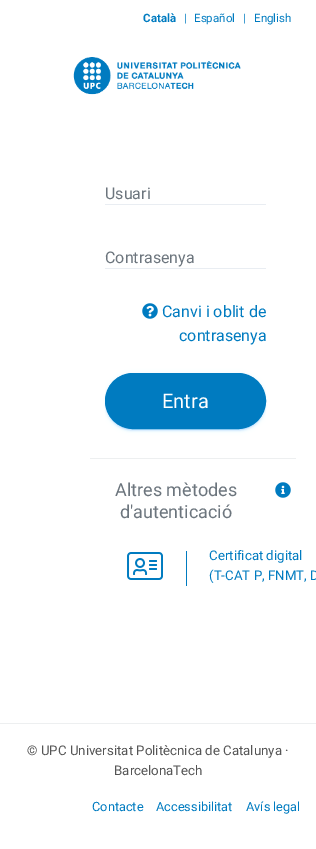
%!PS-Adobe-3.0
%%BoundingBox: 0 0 316 849
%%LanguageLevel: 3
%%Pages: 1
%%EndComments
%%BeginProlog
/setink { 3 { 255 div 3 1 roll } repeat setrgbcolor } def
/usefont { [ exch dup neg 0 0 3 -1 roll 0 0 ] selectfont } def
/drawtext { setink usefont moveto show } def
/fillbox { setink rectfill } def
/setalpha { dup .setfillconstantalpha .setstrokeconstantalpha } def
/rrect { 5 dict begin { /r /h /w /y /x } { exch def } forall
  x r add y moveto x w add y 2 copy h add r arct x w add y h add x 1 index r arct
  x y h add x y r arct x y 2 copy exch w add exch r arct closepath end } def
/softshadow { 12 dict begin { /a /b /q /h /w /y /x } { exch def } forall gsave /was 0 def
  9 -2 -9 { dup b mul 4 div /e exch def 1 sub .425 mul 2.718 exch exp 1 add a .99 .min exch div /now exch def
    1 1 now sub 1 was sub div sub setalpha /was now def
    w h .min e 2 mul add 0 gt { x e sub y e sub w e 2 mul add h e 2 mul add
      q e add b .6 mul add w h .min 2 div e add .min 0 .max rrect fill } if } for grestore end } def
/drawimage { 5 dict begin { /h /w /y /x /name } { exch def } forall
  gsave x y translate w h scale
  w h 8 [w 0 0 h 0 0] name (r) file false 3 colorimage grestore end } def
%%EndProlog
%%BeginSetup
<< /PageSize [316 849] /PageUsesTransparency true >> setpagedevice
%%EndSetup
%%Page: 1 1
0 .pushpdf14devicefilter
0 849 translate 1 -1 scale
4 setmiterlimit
0 0 316 849 255 255 255 fillbox
(Català) 143 22 /Roboto-Bold 11.5 0 123 192 drawtext
(|) 184 22 /Roboto-Regular 11.5 0 123 192 drawtext
(Español) 194 22 /Roboto-Regular 11.5 0 123 192 drawtext
(|) 243 22 /Roboto-Regular 11.5 0 123 192 drawtext
(English) 254 22 /Roboto-Regular 11.5 0 123 192 drawtext
(assets/img1.rgb) 73 57 168 38 drawimage
105 204 161 1 233 237 242 fillbox
(Usuari) 105 199 /Roboto-Regular 16 108 117 125 drawtext
105 268 161 1 233 237 242 fillbox
(Contrasenya) 105 263 /Roboto-Regular 16 108 117 125 drawtext
(assets/img2.rgb) 142 303 16 16 drawimage
(Canvi i oblit de) 162 317 /Roboto-Regular 16 0 123 192 drawtext
(contrasenya) 179 341 /Roboto-Regular 16 0 123 192 drawtext
gsave
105 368 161 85 rectclip
66 165 245 setink
105 374 161 56 28 2.5 0.12 softshadow
grestore
66 165 245 setink
107 378 157 52 26 0.5 0.2 softshadow
105 375 161 56 28 1 0.14 softshadow
0 123 192 setink
105.5 373.5 160 55 27.5 rrect gsave fill grestore
stroke
(Entra) 162 408 /Roboto-Regular 20 255 255 255 drawtext
90 458 206 1 237 239 240 fillbox
(Altres mètodes) 115 496 /Roboto-Regular 18 108 117 125 drawtext
(d'autenticació) 120 518 /Roboto-Regular 18 108 117 125 drawtext
(assets/img3.rgb) 275 482 16 16 drawimage
186 551 1 35 0 123 192 fillbox
(assets/img4.rgb) 127 552 36 28 drawimage
(Certificat digital) 209 560 /Roboto-Regular 13.3 0 123 192 drawtext
(\(T-CAT P, FNMT, D) 209 580 /Roboto-Regular 13.3 0 123 192 drawtext
0 723 316 1 237 239 240 fillbox
(© UPC Universitat Politècnica de Catalunya ·) 27 755 /Roboto-Regular 13.3 85 85 85 drawtext
(BarcelonaTech) 114 775 /Roboto-Regular 13.3 85 85 85 drawtext
(Contacte) 92 811 /Roboto-Regular 12.75 0 123 192 drawtext
(Accessibilitat) 156 811 /Roboto-Regular 12.75 0 123 192 drawtext
(Avís legal) 246 811 /Roboto-Regular 12.75 0 123 192 drawtext
.poppdf14devicefilter showpage
%%EOF
